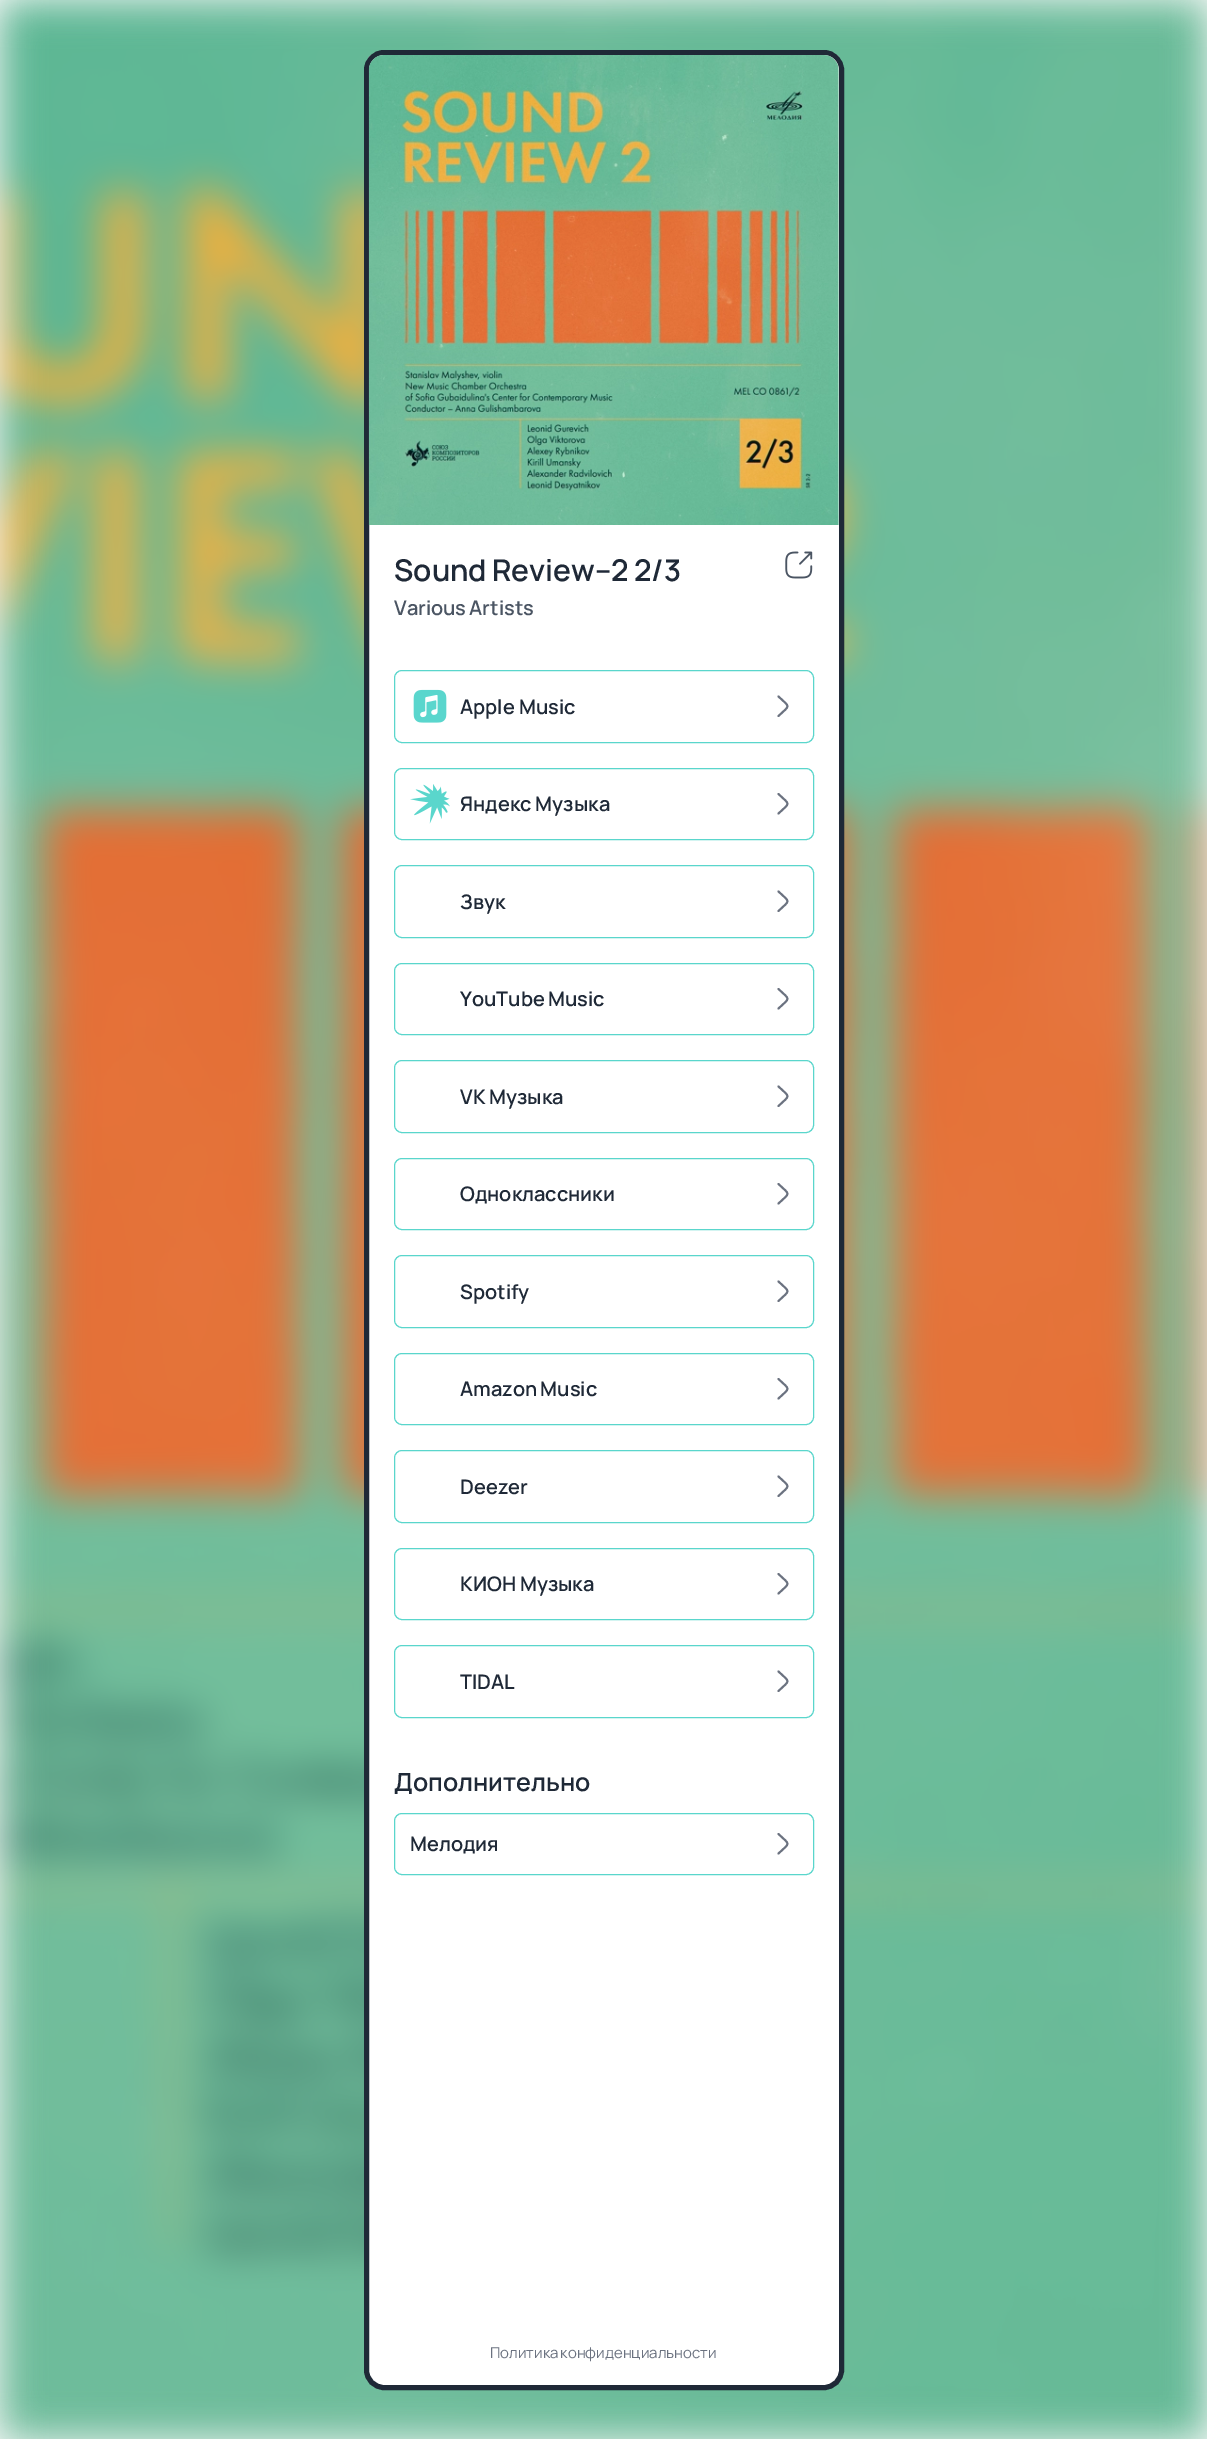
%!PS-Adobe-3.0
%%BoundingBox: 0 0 1207 2439
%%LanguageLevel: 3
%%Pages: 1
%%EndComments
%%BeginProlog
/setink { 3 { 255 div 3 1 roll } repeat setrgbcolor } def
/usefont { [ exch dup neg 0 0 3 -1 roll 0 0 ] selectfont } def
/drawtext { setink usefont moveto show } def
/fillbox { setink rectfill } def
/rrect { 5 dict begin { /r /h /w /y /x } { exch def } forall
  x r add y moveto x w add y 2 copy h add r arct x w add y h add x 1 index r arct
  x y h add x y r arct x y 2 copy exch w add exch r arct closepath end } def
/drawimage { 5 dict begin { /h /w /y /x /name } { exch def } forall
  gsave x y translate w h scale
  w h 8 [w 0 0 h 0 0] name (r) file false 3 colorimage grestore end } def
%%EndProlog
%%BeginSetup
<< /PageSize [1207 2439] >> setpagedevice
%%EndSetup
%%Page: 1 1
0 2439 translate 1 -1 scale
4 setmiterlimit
0 0 1207 2439 248 248 248 fillbox
(assets/img1.rgb) 0 0 1207 2439 drawimage
255 255 255 setink
366.5 52.5 475 2335 17.5 rrect gsave fill grestore
31 41 55 setink
5 setlinewidth
stroke
(assets/img2.rgb) 368 55 471 470 drawimage
/Manrope-SemiBold 30 usefont
394 581 moveto -1 0 32 (Sound Review–2 2/3) widthshow
/Manrope-SemiBold 20 usefont
75 85 99 setink
394 615 moveto -1 0 32 (Various Artists) widthshow
(assets/img3.rgb) 785 551 28 28 drawimage
90 214 204 setink
1 setlinewidth
394.5 670.5 419 72 7.5 rrect stroke
(assets/img4.rgb) 413 689 34 34 drawimage
(Apple Music) 460 714 /Manrope-SemiBold 20 31 41 55 drawtext
107 114 128 setink
1.9 setlinewidth
1 setlinecap
1 setlinejoin
778.5 716 moveto 790.5 704.5 790.5 708 778.5 696.5 curveto stroke
90 214 204 setink
1 setlinewidth
0 setlinecap
0 setlinejoin
394.5 768.5 419 71 7.5 rrect stroke
(assets/img5.rgb) 410 784 40 40 drawimage
(Яндекс Музыка) 460 811 /Manrope-SemiBold 20 31 41 55 drawtext
107 114 128 setink
1.9 setlinewidth
1 setlinecap
1 setlinejoin
778.5 813.5 moveto 790.5 802 790.5 805.5 778.5 794 curveto stroke
90 214 204 setink
1 setlinewidth
0 setlinecap
0 setlinejoin
394.5 865.5 419 72 7.5 rrect stroke
(Звук) 460 909 /Manrope-SemiBold 20 31 41 55 drawtext
107 114 128 setink
1.9 setlinewidth
1 setlinecap
1 setlinejoin
778.5 911 moveto 790.5 899.5 790.5 903 778.5 891.5 curveto stroke
90 214 204 setink
1 setlinewidth
0 setlinecap
0 setlinejoin
394.5 963.5 419 71 7.5 rrect stroke
31 41 55 setink
460 1006 moveto -1 0 32 (YouTube Music) widthshow
107 114 128 setink
1.9 setlinewidth
1 setlinecap
1 setlinejoin
778.5 1008.5 moveto 790.5 997 790.5 1000.5 778.5 989 curveto stroke
90 214 204 setink
1 setlinewidth
0 setlinecap
0 setlinejoin
394.5 1060.5 419 72 7.5 rrect stroke
(VK Музыка) 460 1104 /Manrope-SemiBold 20 31 41 55 drawtext
107 114 128 setink
1.9 setlinewidth
1 setlinecap
1 setlinejoin
778.5 1106 moveto 790.5 1094.5 790.5 1098 778.5 1086.5 curveto stroke
90 214 204 setink
1 setlinewidth
0 setlinecap
0 setlinejoin
394.5 1158.5 419 71 7.5 rrect stroke
(Одноклассники) 460 1201 /Manrope-SemiBold 20 31 41 55 drawtext
107 114 128 setink
1.9 setlinewidth
1 setlinecap
1 setlinejoin
778.5 1203.5 moveto 790.5 1192 790.5 1195.5 778.5 1184 curveto stroke
90 214 204 setink
1 setlinewidth
0 setlinecap
0 setlinejoin
394.5 1255.5 419 72 7.5 rrect stroke
(Spotify) 460 1299 /Manrope-SemiBold 20 31 41 55 drawtext
107 114 128 setink
1.9 setlinewidth
1 setlinecap
1 setlinejoin
778.5 1301 moveto 790.5 1289.5 790.5 1293 778.5 1281.5 curveto stroke
90 214 204 setink
1 setlinewidth
0 setlinecap
0 setlinejoin
394.5 1353.5 419 71 7.5 rrect stroke
31 41 55 setink
460 1396 moveto -1 0 32 (Amazon Music) widthshow
107 114 128 setink
1.9 setlinewidth
1 setlinecap
1 setlinejoin
778.5 1398.5 moveto 790.5 1387 790.5 1390.5 778.5 1379 curveto stroke
90 214 204 setink
1 setlinewidth
0 setlinecap
0 setlinejoin
394.5 1450.5 419 72 7.5 rrect stroke
(Deezer) 460 1494 /Manrope-SemiBold 20 31 41 55 drawtext
107 114 128 setink
1.9 setlinewidth
1 setlinecap
1 setlinejoin
778.5 1496 moveto 790.5 1484.5 790.5 1488 778.5 1476.5 curveto stroke
90 214 204 setink
1 setlinewidth
0 setlinecap
0 setlinejoin
394.5 1548.5 419 71 7.5 rrect stroke
(КИОН Музыка) 460 1591 /Manrope-SemiBold 20 31 41 55 drawtext
107 114 128 setink
1.9 setlinewidth
1 setlinecap
1 setlinejoin
778.5 1593.5 moveto 790.5 1582 790.5 1585.5 778.5 1574 curveto stroke
90 214 204 setink
1 setlinewidth
0 setlinecap
0 setlinejoin
394.5 1645.5 419 72 7.5 rrect stroke
(TIDAL) 460 1689 /Manrope-SemiBold 20 31 41 55 drawtext
107 114 128 setink
1.9 setlinewidth
1 setlinecap
1 setlinejoin
778.5 1691 moveto 790.5 1679.5 790.5 1683 778.5 1671.5 curveto stroke
(Дополнительно) 394 1791 /Manrope-SemiBold 25 31 41 55 drawtext
90 214 204 setink
1 setlinewidth
0 setlinecap
0 setlinejoin
394.5 1813.5 419 61 7.5 rrect stroke
(Мелодия) 410 1851 /Manrope-SemiBold 20 31 41 55 drawtext
107 114 128 setink
1.9 setlinewidth
1 setlinecap
1 setlinejoin
778.5 1853.5 moveto 790.5 1842 790.5 1845.5 778.5 1834 curveto stroke
/Manrope-Regular 15 usefont
490 2358 moveto -1 0 32 (Политика конфиденциальности) widthshow
showpage
%%EOF
